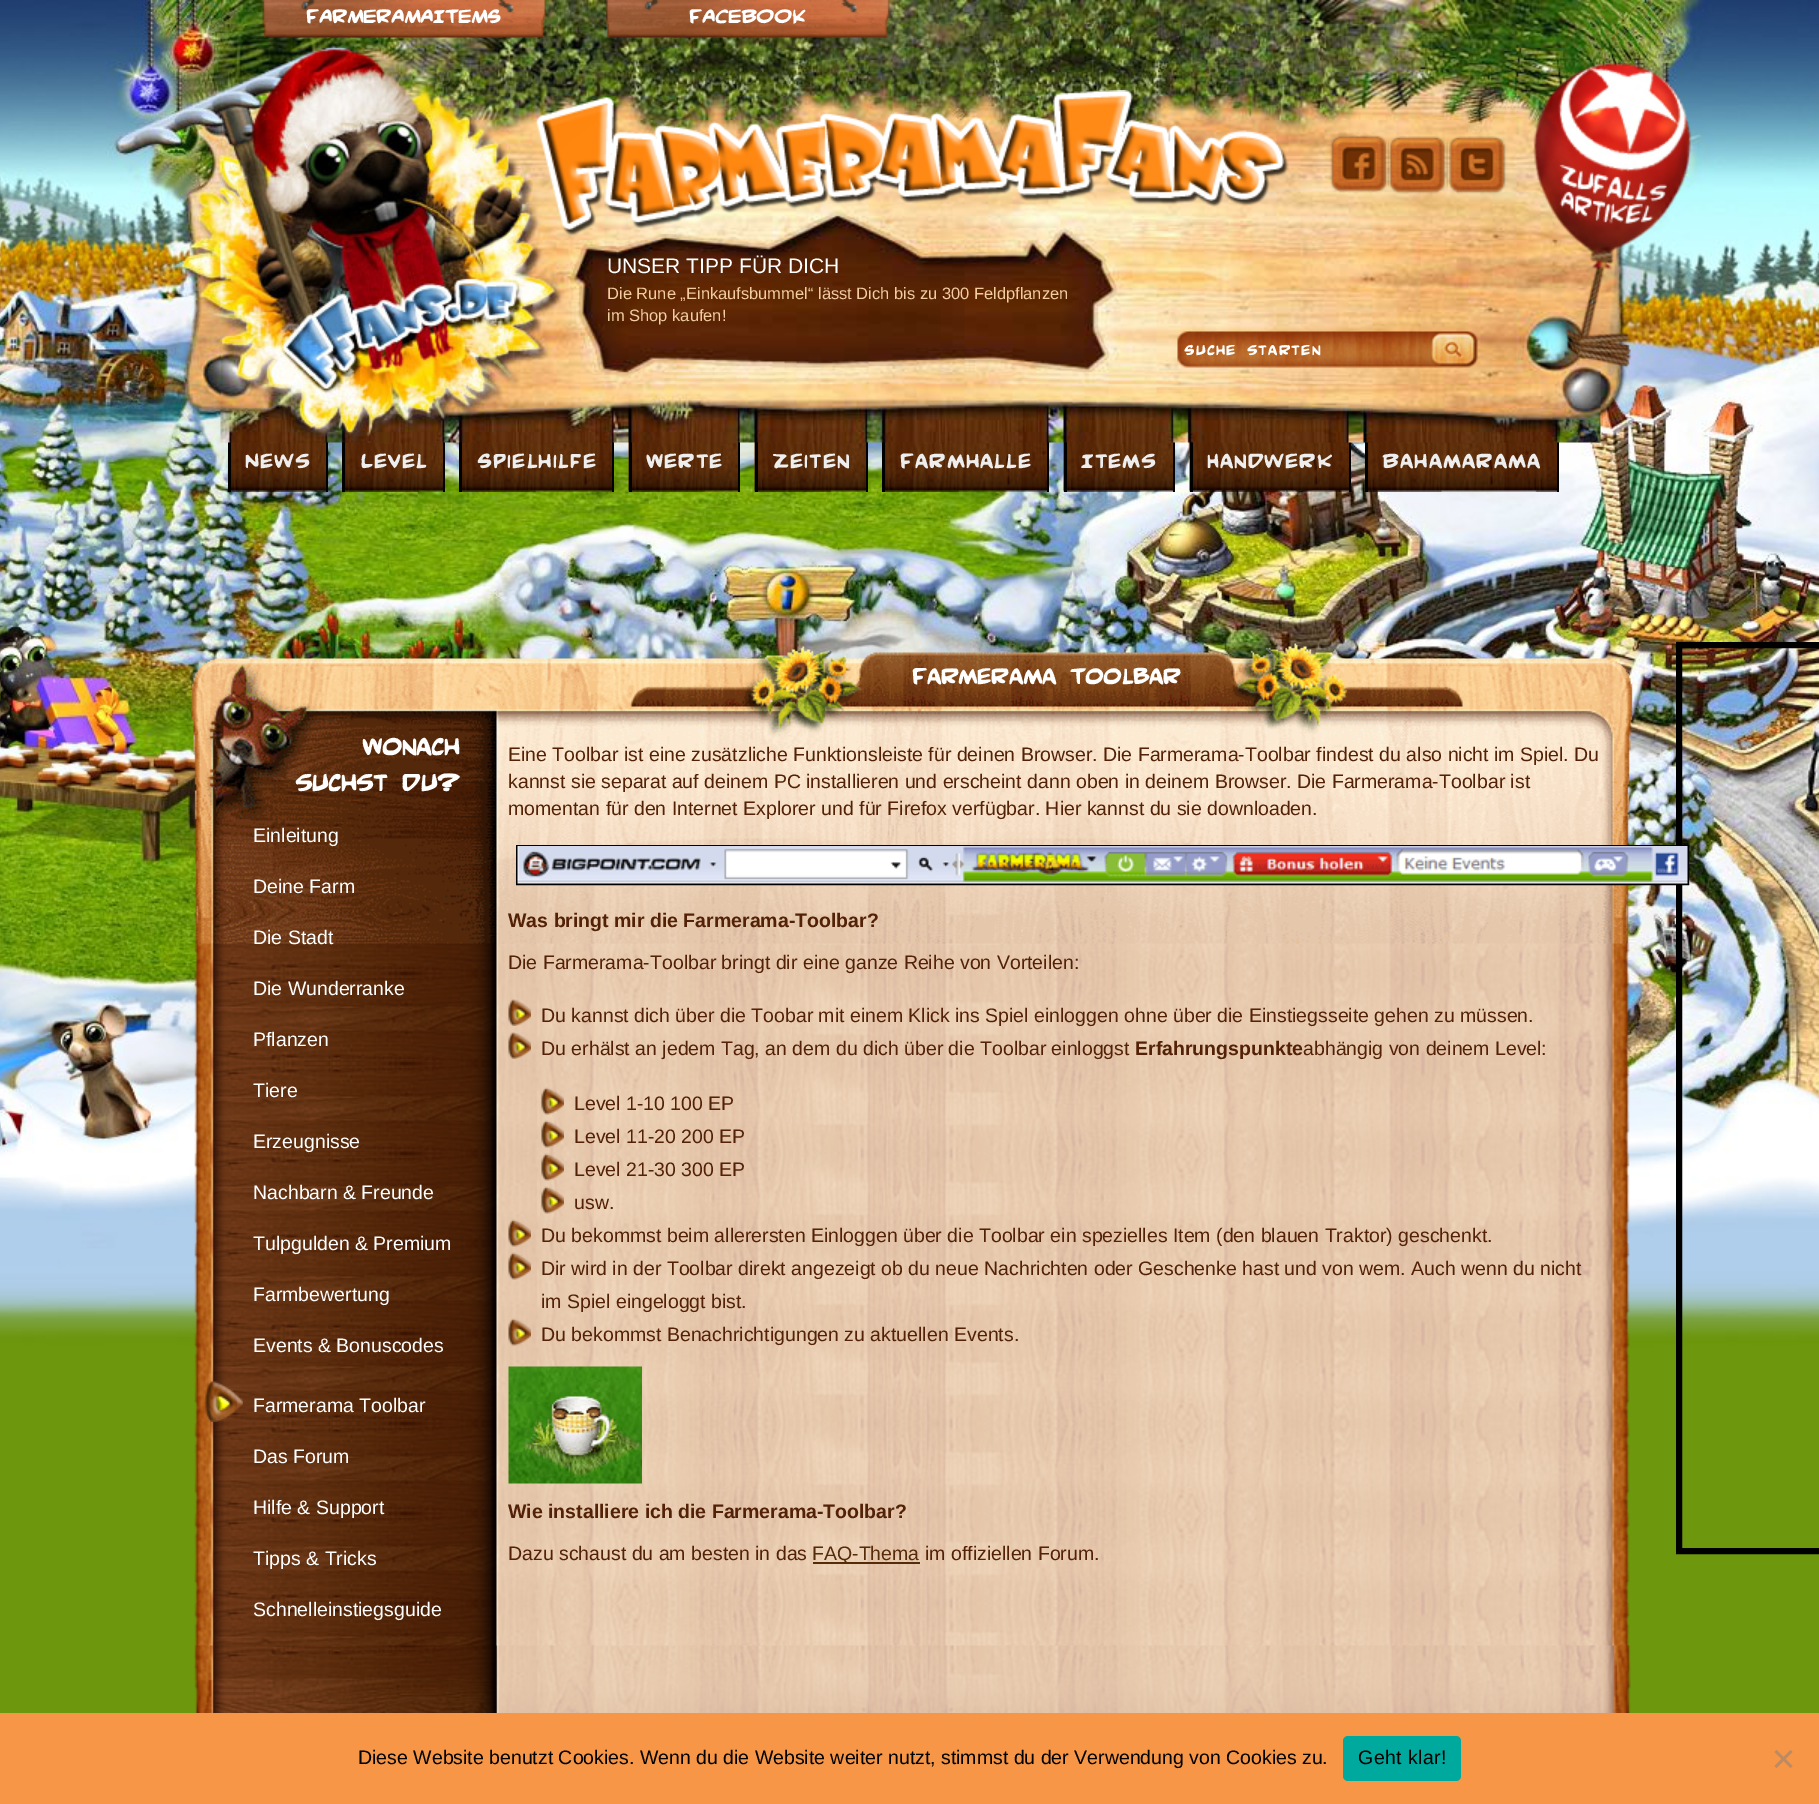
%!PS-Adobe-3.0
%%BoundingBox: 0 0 1819 1804
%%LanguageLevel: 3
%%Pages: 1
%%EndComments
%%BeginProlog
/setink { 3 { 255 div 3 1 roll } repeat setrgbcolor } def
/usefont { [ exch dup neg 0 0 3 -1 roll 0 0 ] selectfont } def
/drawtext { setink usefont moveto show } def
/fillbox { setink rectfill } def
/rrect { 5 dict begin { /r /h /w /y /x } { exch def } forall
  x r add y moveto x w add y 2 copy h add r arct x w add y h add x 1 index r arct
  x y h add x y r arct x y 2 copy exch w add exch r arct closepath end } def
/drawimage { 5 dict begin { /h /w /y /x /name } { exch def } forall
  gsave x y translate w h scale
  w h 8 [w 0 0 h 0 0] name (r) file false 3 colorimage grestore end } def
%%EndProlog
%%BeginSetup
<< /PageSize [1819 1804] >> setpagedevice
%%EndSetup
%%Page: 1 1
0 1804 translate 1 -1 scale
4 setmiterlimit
0 0 1819 1804 255 255 255 fillbox
(assets/img1.rgb) 0 0 1819 1713 drawimage
(assets/img11.rgb) 231 442 95 50 drawimage
326 442 2 50 0 0 0 fillbox
228 442 3 50 0 0 0 fillbox
(assets/img12.rgb) 345 442 98 50 drawimage
443 442 2 50 0 0 0 fillbox
342 442 3 50 0 0 0 fillbox
(assets/img13.rgb) 462 442 150 50 drawimage
612 442 2 50 0 0 0 fillbox
459 442 3 50 0 0 0 fillbox
(assets/img14.rgb) 628 442 110 50 drawimage
738 442 2 50 0 0 0 fillbox
629 442 3 50 0 0 0 fillbox
(assets/img15.rgb) 754 442 112 50 drawimage
866 442 2 50 0 0 0 fillbox
755 442 3 50 0 0 0 fillbox
(assets/img16.rgb) 885 442 162 50 drawimage
1047 442 2 50 0 0 0 fillbox
882 442 3 50 0 0 0 fillbox
(assets/img17.rgb) 1063 442 110 50 drawimage
1173 442 2 50 0 0 0 fillbox
1064 442 3 50 0 0 0 fillbox
(assets/img18.rgb) 1189 442 160 50 drawimage
1349 442 2 50 0 0 0 fillbox
1190 442 3 50 0 0 0 fillbox
(assets/img19.rgb) 1368 442 189 50 drawimage
1557 442 2 50 0 0 0 fillbox
1365 442 3 50 0 0 0 fillbox
(assets/img2.rgb) 220 0 1381 443 drawimage
(assets/img3.rgb) 262 0 284 38 drawimage
(FARMERAMAITEMS) 306 23 /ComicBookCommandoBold-Bold 28.5 255 255 255 drawtext
(assets/img4.rgb) 606 0 284 38 drawimage
(FACEBOOK) 689 23 /ComicBookCommandoBold-Bold 28.5 255 255 255 drawtext
(assets/img5.rgb) 535 90 754 146 drawimage
(assets/img6.rgb) 1330 135 59 58 drawimage
(assets/img7.rgb) 1389 136 59 58 drawimage
(assets/img8.rgb) 1448 136 58 58 drawimage
(UNSER TIPP FÜR DICH) 607 273 /LiberationSans-Regular 21 255 255 255 drawtext
(Die Rune „Einkaufsbummel“ lässt Dich bis zu 300 Feldpflanzen) 607 299 /LiberationSans-Regular 16.5 242 205 161 drawtext
(im Shop kaufen!) 607 321 /LiberationSans-Regular 16.5 242 205 161 drawtext
(assets/img9.rgb) 1177 331 301 37 drawimage
/ComicBookCommandoBold-Bold 21 usefont
255 255 255 setink
1184 355 moveto 1.6 0 (Suche starten) ashow
(assets/img10.rgb) 1533 61 159 307 drawimage
/ComicBookCommandoBold-Bold 30 usefont
238 238 238 setink
245 468 moveto 1.5 0 (News) ashow
361 468 moveto 1.5 0 (Level) ashow
477 468 moveto 1.5 0 (Spielhilfe) ashow
646 468 moveto 1.5 0 (Werte) ashow
773 468 moveto 1.5 0 (Zeiten) ashow
900 468 moveto 1.5 0 (Farmhalle) ashow
1081 468 moveto 1.5 0 (Items) ashow
1207 468 moveto 1.5 0 (Handwerk) ashow
1382 468 moveto 1.5 0 (Bahamarama) ashow
(assets/img21.rgb) 194 734 1436 934 drawimage
(assets/img20.rgb) 191 643 1442 301 drawimage
(Farmerama Toolbar) 912 684 /ComicBookCommandoBold-Bold 33 255 255 255 drawtext
(Wonach) 362 755 /ComicBookCommandoBold-Bold 36 255 255 255 drawtext
(suchst du?) 295 791 /ComicBookCommandoBold-Bold 36 255 255 255 drawtext
(Einleitung) 253 842 /LiberationSans-Regular 19.5 255 255 255 drawtext
(Deine Farm) 253 893 /LiberationSans-Regular 19.5 255 255 255 drawtext
(Die Stadt) 253 944 /LiberationSans-Regular 19.5 255 255 255 drawtext
(Die Wunderranke) 253 995 /LiberationSans-Regular 19.5 255 255 255 drawtext
(Pflanzen) 253 1046 /LiberationSans-Regular 19.5 255 255 255 drawtext
(Tiere) 253 1097 /LiberationSans-Regular 19.5 255 255 255 drawtext
(Erzeugnisse) 253 1148 /LiberationSans-Regular 19.5 255 255 255 drawtext
(Nachbarn & Freunde) 253 1199 /LiberationSans-Regular 19.5 255 255 255 drawtext
(Tulpgulden & Premium) 253 1250 /LiberationSans-Regular 19.5 255 255 255 drawtext
(Farmbewertung) 253 1301 /LiberationSans-Regular 19.5 255 255 255 drawtext
(Events & Bonuscodes) 253 1352 /LiberationSans-Regular 19.5 255 255 255 drawtext
(assets/img22.rgb) 205 1381 38 41 drawimage
(Farmerama Toolbar) 253 1412 /LiberationSans-Regular 19.5 255 255 255 drawtext
(Das Forum) 253 1463 /LiberationSans-Regular 19.5 255 255 255 drawtext
(Hilfe & Support) 253 1514 /LiberationSans-Regular 19.5 255 255 255 drawtext
(Tipps & Tricks) 253 1565 /LiberationSans-Regular 19.5 255 255 255 drawtext
(Schnelleinstiegsguide) 253 1616 /LiberationSans-Regular 19.5 255 255 255 drawtext
(Eine Toolbar ist eine zusätzliche Funktionsleiste für deinen Browser. Die Farmerama-Toolbar findest du also nicht im Spiel. Du) 508 761 /LiberationSans-Regular 19.5 83 33 6 drawtext
(kannst sie separat auf deinem PC installieren und erscheint dann oben in deinem Browser. Die Farmerama-Toolbar ist) 508 788 /LiberationSans-Regular 19.5 83 33 6 drawtext
(momentan für den Internet Explorer und für Firefox verfügbar. Hier kannst du sie downloaden.) 508 815 /LiberationSans-Regular 19.5 83 33 6 drawtext
0 0 0 setink
6 setlinewidth
1679 645 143 906 rectstroke
2 setlinewidth
517 846 1171 38 rectstroke
(assets/img23.rgb) 517 846 1171 38 drawimage
(Was bringt mir die Farmerama-Toolbar?) 508 927 /LiberationSans-Bold 19.5 83 33 6 drawtext
(Die Farmerama-Toolbar bringt dir eine ganze Reihe von Vorteilen:) 508 969 /LiberationSans-Regular 19.5 83 33 6 drawtext
(assets/img24.rgb) 508 999 23 27 drawimage
(Du kannst dich über die Toobar mit einem Klick ins Spiel einloggen ohne über die Einstiegsseite gehen zu müssen.) 541 1022 /LiberationSans-Regular 19.5 83 33 6 drawtext
(assets/img25.rgb) 508 1032 23 27 drawimage
(Du erhälst an jedem Tag, an dem du dich über die Toolbar einloggst) 541 1055 /LiberationSans-Regular 19.5 83 33 6 drawtext
(Erfahrungspunkte) 1135 1055 /LiberationSans-Bold 19.5 83 33 6 drawtext
(abhängig von deinem Level:) 1303 1055 /LiberationSans-Regular 19.5 83 33 6 drawtext
(assets/img26.rgb) 541 1087 23 28 drawimage
(Level 1-10 100 EP) 574 1110 /LiberationSans-Regular 19.5 83 33 6 drawtext
(assets/img27.rgb) 541 1120 23 28 drawimage
(Level 11-20 200 EP) 574 1143 /LiberationSans-Regular 19.5 83 33 6 drawtext
(assets/img28.rgb) 541 1153 23 28 drawimage
(Level 21-30 300 EP) 574 1176 /LiberationSans-Regular 19.5 83 33 6 drawtext
(assets/img29.rgb) 541 1186 23 28 drawimage
(usw.) 574 1209 /LiberationSans-Regular 19.5 83 33 6 drawtext
(assets/img30.rgb) 508 1219 23 28 drawimage
(Du bekommst beim allerersten Einloggen über die Toolbar ein spezielles Item \(den blauen Traktor\) geschenkt.) 541 1242 /LiberationSans-Regular 19.5 83 33 6 drawtext
(assets/img31.rgb) 508 1252 23 28 drawimage
(Dir wird in der Toolbar direkt angezeigt ob du neue Nachrichten oder Geschenke hast und von wem. Auch wenn du nicht) 541 1275 /LiberationSans-Regular 19.5 83 33 6 drawtext
(im Spiel eingeloggt bist.) 541 1308 /LiberationSans-Regular 19.5 83 33 6 drawtext
(assets/img32.rgb) 508 1318 23 28 drawimage
(Du bekommst Benachrichtigungen zu aktuellen Events.) 541 1341 /LiberationSans-Regular 19.5 83 33 6 drawtext
(assets/img33.rgb) 508 1366 134 118 drawimage
(Wie installiere ich die Farmerama-Toolbar?) 508 1518 /LiberationSans-Bold 19.5 83 33 6 drawtext
(Dazu schaust du am besten in das) 508 1560 /LiberationSans-Regular 19.5 83 33 6 drawtext
813 1562 107 2 86 43 10 fillbox
(FAQ-Thema) 812 1560 /LiberationSans-Regular 19.5 86 43 10 drawtext
(im offiziellen Forum.) 925 1560 /LiberationSans-Regular 19.5 83 33 6 drawtext
(assets/img34.rgb) 194 1645 1437 68 drawimage
0 1713 1819 91 247 150 70 fillbox
(Diese Website benutzt Cookies. Wenn du die Website weiter nutzt, stimmst du der Verwendung von Cookies zu.) 358 1764 /LiberationSans-Regular 19.5 0 0 0 drawtext
0 169 157 setink
1343 1736 118 45 5 rrect fill
0 0 0 setink
1358 1764 moveto 0.4 0 (Geht klar!) ashow
188 139 99 setink
1790.5 1750 moveto 1792.5 1752 lineto 1776.5 1768 lineto 1774.5 1766 lineto closepath fill
1774.5 1752 moveto 1776.5 1750 lineto 1792.5 1766 lineto 1790.5 1768 lineto closepath fill
showpage
%%EOF
